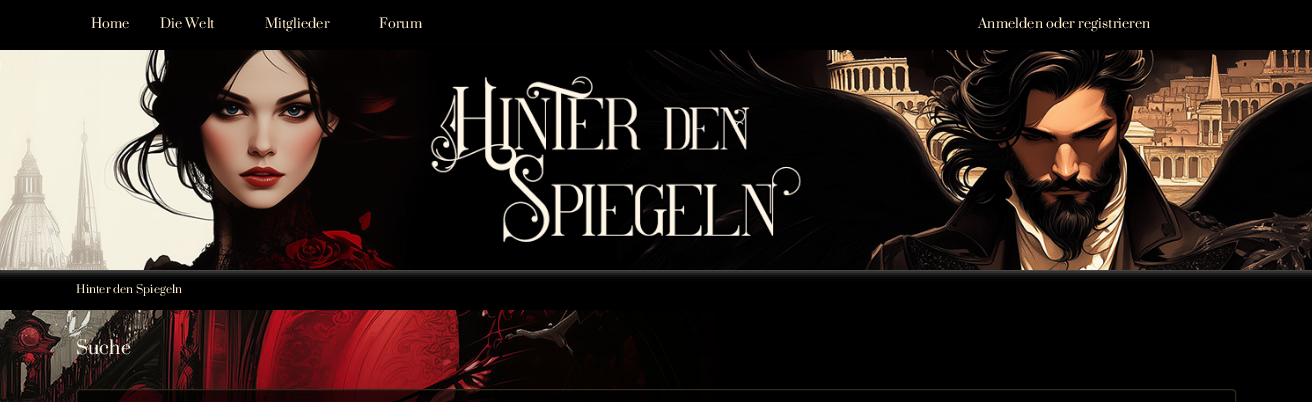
%!PS-Adobe-3.0
%%BoundingBox: 0 0 1312 402
%%LanguageLevel: 3
%%Pages: 1
%%EndComments
%%BeginProlog
/setink { 3 { 255 div 3 1 roll } repeat setrgbcolor } def
/usefont { [ exch dup neg 0 0 3 -1 roll 0 0 ] selectfont } def
/drawtext { setink usefont moveto show } def
/fillbox { setink rectfill } def
/setalpha { dup .setfillconstantalpha .setstrokeconstantalpha } def
/rrect { 5 dict begin { /r /h /w /y /x } { exch def } forall
  x r add y moveto x w add y 2 copy h add r arct x w add y h add x 1 index r arct
  x y h add x y r arct x y 2 copy exch w add exch r arct closepath end } def
/softshadow { 12 dict begin { /a /b /q /h /w /y /x } { exch def } forall gsave /was 0 def
  9 -2 -9 { dup b mul 4 div /e exch def 1 sub .425 mul 2.718 exch exp 1 add a .99 .min exch div /now exch def
    1 1 now sub 1 was sub div sub setalpha /was now def
    w h .min e 2 mul add 0 gt { x e sub y e sub w e 2 mul add h e 2 mul add
      q e add b .6 mul add w h .min 2 div e add .min 0 .max rrect fill } if } for grestore end } def
/drawimage { 5 dict begin { /h /w /y /x /name } { exch def } forall
  gsave x y translate w h scale
  w h 8 [w 0 0 h 0 0] name (r) file false 3 colorimage grestore end } def
%%EndProlog
%%BeginSetup
<< /PageSize [1312 402] /PageUsesTransparency true >> setpagedevice
%%EndSetup
%%Page: 1 1
0 .pushpdf14devicefilter
0 402 translate 1 -1 scale
4 setmiterlimit
0 0 1312 402 0 0 0 fillbox
(assets/img1.rgb) 0 310 760 92 drawimage
255 255 255 setink
0 52 1312 220 0 4 0.4 softshadow
(assets/img2.rgb) 0 50 1312 220 drawimage
0 44 1312 6 0 0 0 fillbox
(Home) 91 28 /Prata-Regular 13 255 236 204 drawtext
(Die Welt) 160 28 /Prata-Regular 13 255 236 204 drawtext
(Mitglieder) 265 28 /Prata-Regular 13 255 236 204 drawtext
(Forum) 379 28 /Prata-Regular 13 255 236 204 drawtext
(Anmelden oder registrieren) 978 28 /Prata-Regular 13 255 236 204 drawtext
(Hinter den Spiegeln) 76 293 /Prata-Regular 11 255 236 204 drawtext
(Suche) 76 354 /Prata-Regular 18 255 246 230 drawtext
0.7 setalpha
0 0 0 setink
76.5 389.5 1159 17 3.5 rrect fill
1 setalpha
50 42 28 setink
76.5 389.5 1159 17 3.5 rrect stroke
.poppdf14devicefilter showpage
%%EOF
